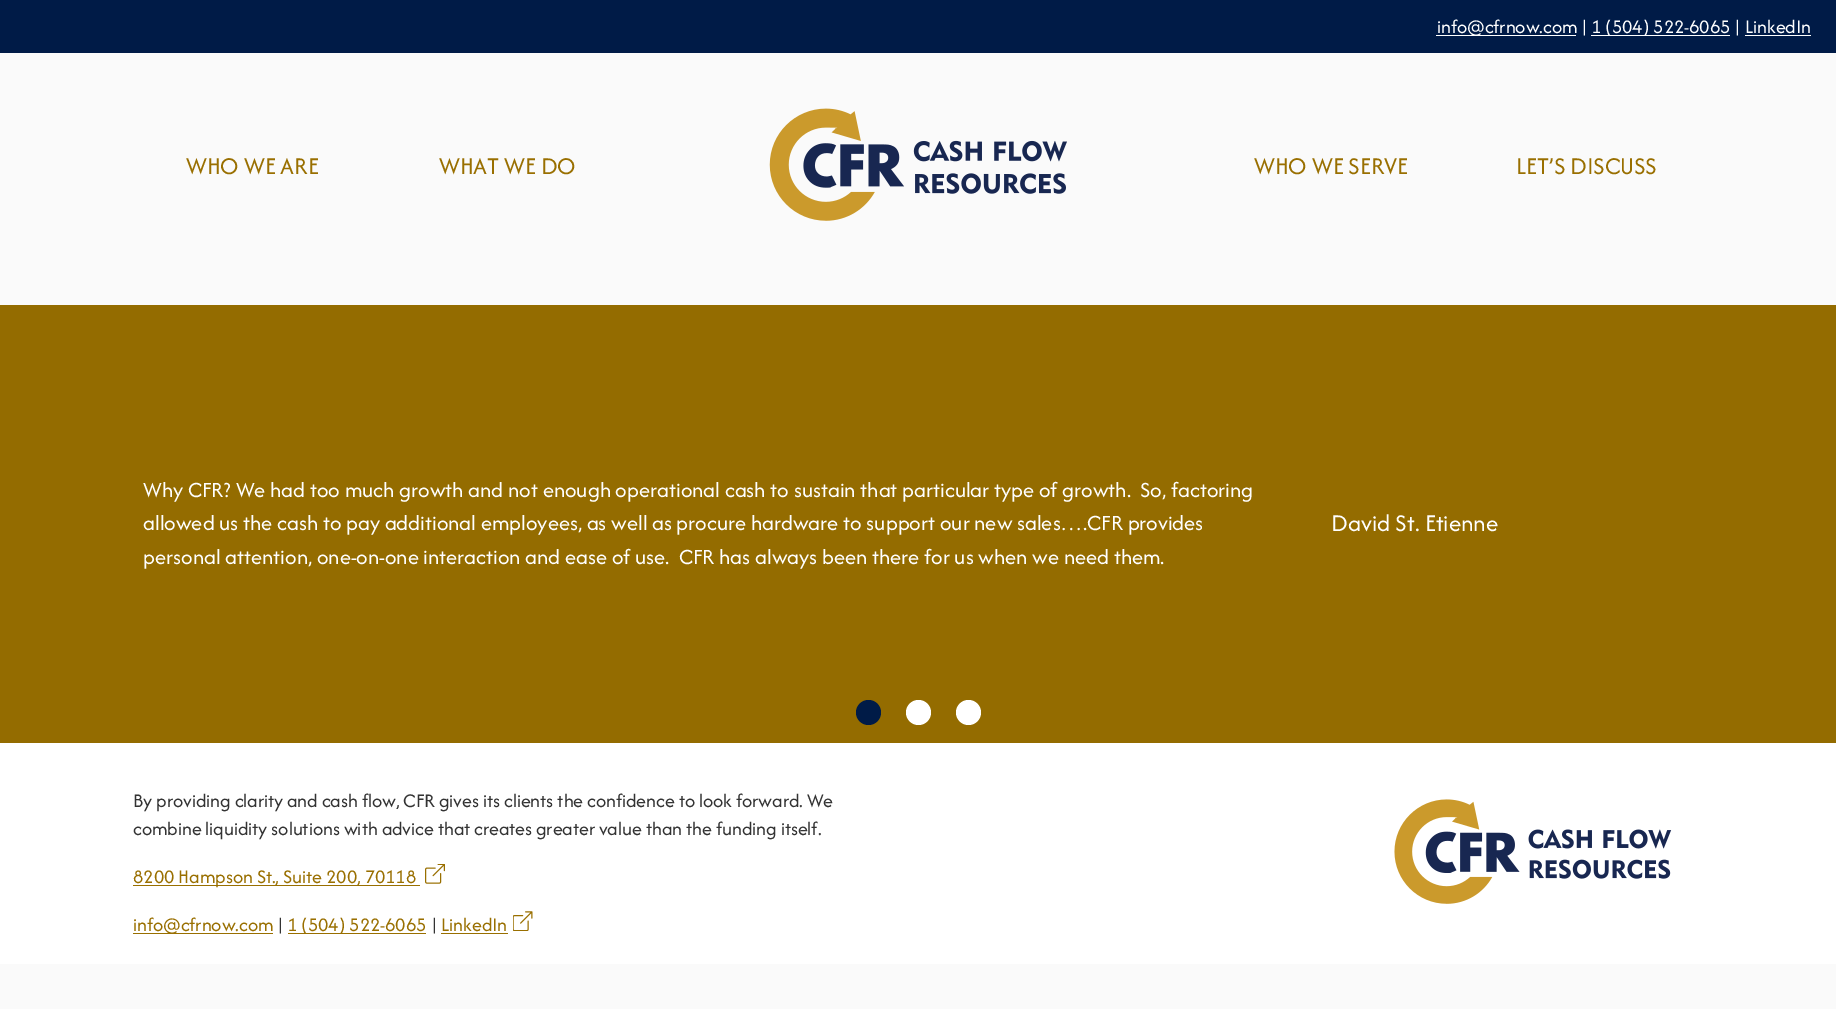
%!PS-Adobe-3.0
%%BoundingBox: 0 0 1836 1009
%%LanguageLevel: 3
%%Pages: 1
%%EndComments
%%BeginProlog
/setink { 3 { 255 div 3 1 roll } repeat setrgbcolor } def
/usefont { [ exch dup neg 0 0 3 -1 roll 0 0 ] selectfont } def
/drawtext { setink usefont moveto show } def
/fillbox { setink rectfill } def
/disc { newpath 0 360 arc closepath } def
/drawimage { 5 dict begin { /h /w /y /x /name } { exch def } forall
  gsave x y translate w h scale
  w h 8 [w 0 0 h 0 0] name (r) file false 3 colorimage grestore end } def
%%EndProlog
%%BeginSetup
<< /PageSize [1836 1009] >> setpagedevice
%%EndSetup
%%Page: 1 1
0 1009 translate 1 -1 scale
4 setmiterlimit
0 0 1836 1009 250 250 250 fillbox
0 0 1836 53 0 27 71 fillbox
1436 35 140 1 255 255 255 fillbox
/Afacad-Regular 20 usefont
1437 33 moveto -0.12 0 (info@cfrnow.com |) ashow
1591 35 139 1 255 255 255 fillbox
1591 33 moveto -0.12 0 (1 \(504\) 522-6065 | LinkedIn) ashow
1745 35 66 1 255 255 255 fillbox
/Afacad-Regular 25 usefont
153 111 0 setink
186 174 moveto -0.12 0 (WHO WE ARE) ashow
439 174 moveto -0.12 0 (WHAT WE DO) ashow
(assets/img1.rgb) 769 108 298 113 drawimage
1254 174 moveto -0.12 0 (WHO WE SERVE) ashow
1516 174 moveto -0.12 0 (LET’S DISCUSS) ashow
0 743 1836 221 255 255 255 fillbox
0 305 1836 438 148 108 0 fillbox
(Why CFR? We had too much growth and not enough operational cash to sustain that particular type of growth.  So, factoring) 143 497 /Afacad-Regular 22.5 255 255 255 drawtext
(allowed us the cash to pay additional employees, as well as procure hardware to support our new sales….CFR provides) 143 530 /Afacad-Regular 22.5 255 255 255 drawtext
(personal attention, one-on-one interaction and ease of use.  CFR has always been there for us when we need them.) 143 564 /Afacad-Regular 22.5 255 255 255 drawtext
(David St. Etienne) 1331 531 /Afacad-Regular 25 255 255 255 drawtext
0 27 71 setink
868.5 712.5 12.5 disc fill
255 255 255 setink
918.5 712.5 12.5 disc fill
968.5 712.5 12.5 disc fill
/Afacad-Regular 20 usefont
51 51 51 setink
133 807 moveto -0.12 0 (By providing clarity and cash flow, CFR gives its clients the confidence to look forward. We) ashow
133 835 moveto -0.12 0 (combine liquidity solutions with advice that creates greater value than the funding itself.) ashow
133 885 287 1 153 111 0 fillbox
133 883 moveto -0.12 0 (8200 Hampson St., Suite 200, 70118) ashow
(assets/img2.rgb) 425 864 20 20 drawimage
133 933 140 1 153 111 0 fillbox
133 931 moveto -0.12 0 (info@cfrnow.com) ashow
51 51 51 setink
277 931 moveto -0.12 0 (|) ashow
288 933 138 1 153 111 0 fillbox
287 931 moveto -0.12 0 (1 \(504\) 522-6065) ashow
51 51 51 setink
431 931 moveto -0.12 0 (|) ashow
153 111 0 setink
441 931 moveto -0.12 0 (LinkedIn) ashow
441 933 67 1 153 111 0 fillbox
(assets/img3.rgb) 513 911 20 20 drawimage
(assets/img4.rgb) 1394 799 278 105 drawimage
showpage
%%EOF
